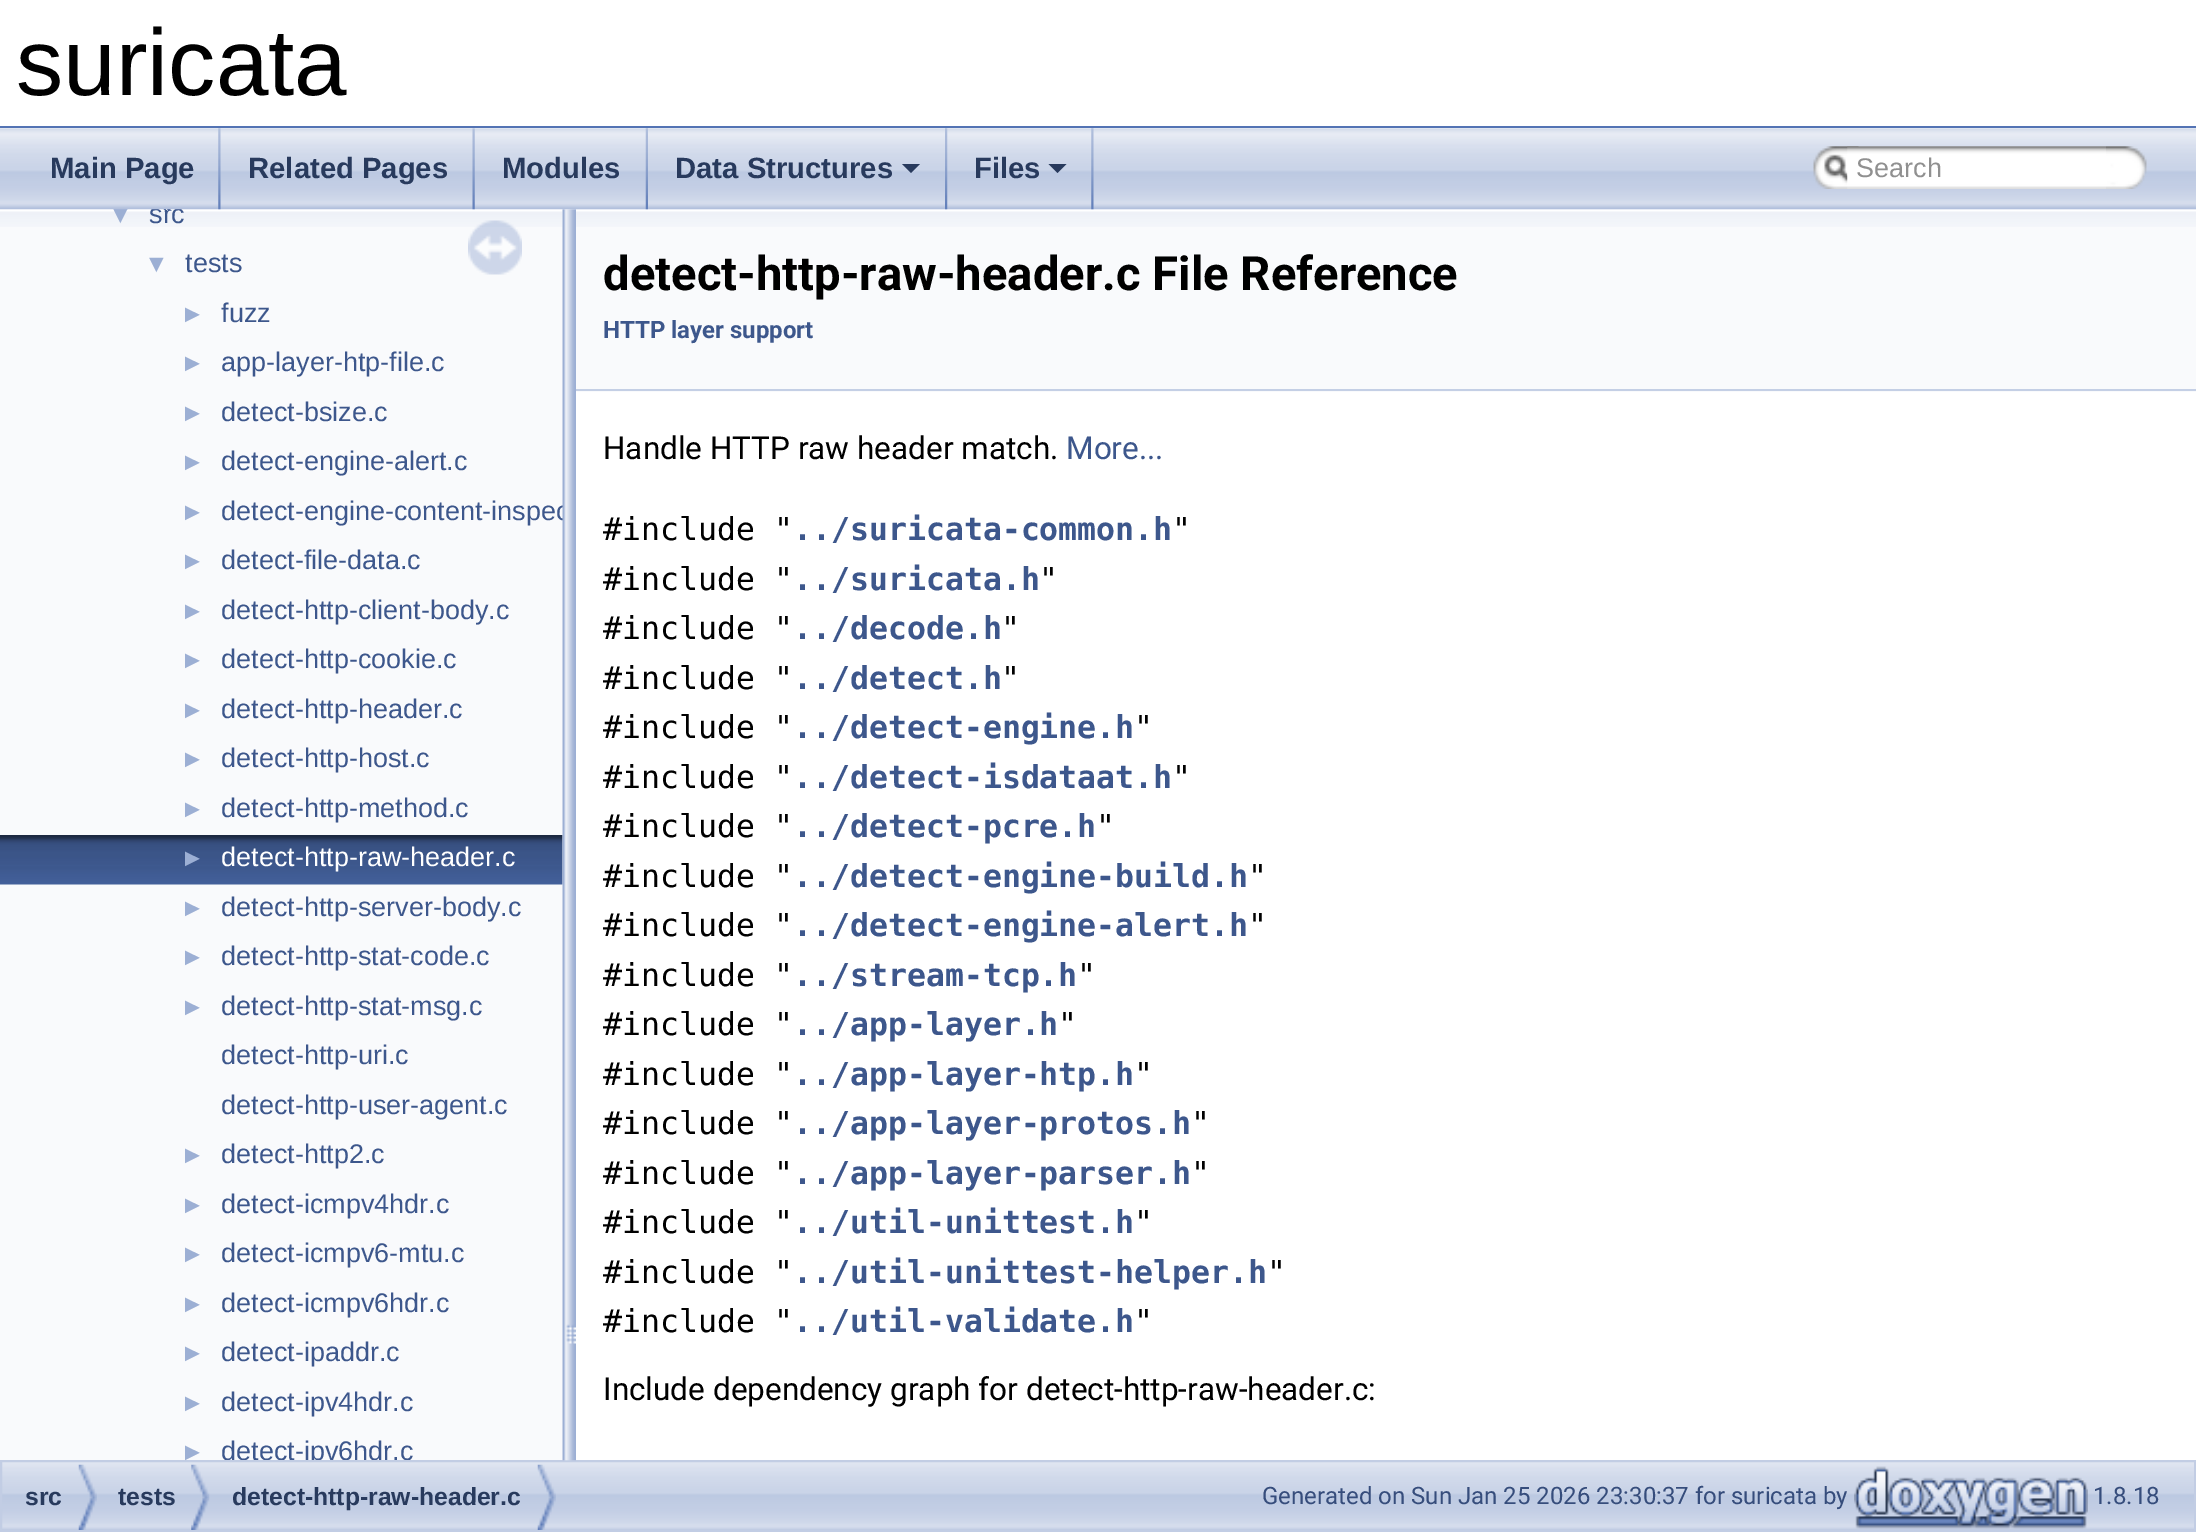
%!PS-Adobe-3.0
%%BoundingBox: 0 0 2196 1532
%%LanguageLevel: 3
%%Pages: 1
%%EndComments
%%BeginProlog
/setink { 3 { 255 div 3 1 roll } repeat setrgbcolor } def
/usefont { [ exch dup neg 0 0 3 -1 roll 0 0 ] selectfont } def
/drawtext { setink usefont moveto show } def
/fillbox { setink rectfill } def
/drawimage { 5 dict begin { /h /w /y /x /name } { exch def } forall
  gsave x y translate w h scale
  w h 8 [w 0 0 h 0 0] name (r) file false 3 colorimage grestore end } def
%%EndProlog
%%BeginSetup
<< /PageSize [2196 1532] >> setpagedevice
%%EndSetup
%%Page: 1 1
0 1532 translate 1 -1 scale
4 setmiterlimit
0 0 2196 1532 255 255 255 fillbox
0 126 2196 2 83 115 180 fillbox
(suricata) 16 95 /LiberationSans-Regular 94.5 0 0 0 drawtext
0 209 563 1251 249 250 252 fillbox
(assets/img11.rgb) 0 209 563 18 drawimage
(▼) 108 223 /LiberationSans-Regular 25 156 175 212 drawtext
(src) 149 223 /LiberationSans-Regular 27 61 87 140 drawtext
(detect-engine-content-inspec) 221 520 /LiberationSans-Regular 27 61 87 140 drawtext
(assets/img12.rgb) 0 835 563 50 drawimage
(assets/img16.rgb) 2 1462 2192 68 drawimage
194 205 228 setink
2 setlinewidth
1 1461 2194 70 rectstroke
(assets/img14.rgb) 562 209 14 1252 drawimage
576 209 1620 183 249 250 252 fillbox
(assets/img1.rgb) 0 128 2196 82 drawimage
(assets/img2.rgb) 218 128 3 82 drawimage
(Main Page) 50 178 /LiberationSans-Bold 29.25 40 58 93 drawtext
(assets/img3.rgb) 472 128 3 82 drawimage
(Related Pages) 248 178 /LiberationSans-Bold 29.25 40 58 93 drawtext
(assets/img4.rgb) 645 128 3 82 drawimage
(Modules) 502 178 /LiberationSans-Bold 29.25 40 58 93 drawtext
(assets/img5.rgb) 945 128 3 82 drawimage
(Data Structures) 675 178 /LiberationSans-Bold 29.25 40 58 93 drawtext
902 164 moveto 920 164 lineto 911 173 lineto closepath fill
(assets/img6.rgb) 1091 128 3 82 drawimage
(Files) 974 178 /LiberationSans-Bold 29.25 40 58 93 drawtext
1048.5 164 moveto 1066.5 164 lineto 1057.5 173 lineto closepath fill
(assets/img7.rgb) 1813 146 46 43 drawimage
(assets/img8.rgb) 1824 154 24 29 drawimage
(assets/img9.rgb) 1847 146 259 43 drawimage
(Search) 1856 177 /LiberationSans-Regular 27 144 144 144 drawtext
(assets/img10.rgb) 2106 146 41 43 drawimage
(▼) 144 272 /LiberationSans-Regular 25 156 175 212 drawtext
(tests) 185 272 /LiberationSans-Regular 27 61 87 140 drawtext
(►) 180 322 /LiberationSans-Regular 25 156 175 212 drawtext
(fuzz) 221 322 /LiberationSans-Regular 27 61 87 140 drawtext
(►) 180 371 /LiberationSans-Regular 25 156 175 212 drawtext
(app-layer-htp-file.c) 221 371 /LiberationSans-Regular 27 61 87 140 drawtext
(►) 180 421 /LiberationSans-Regular 25 156 175 212 drawtext
(detect-bsize.c) 221 421 /LiberationSans-Regular 27 61 87 140 drawtext
(►) 180 470 /LiberationSans-Regular 25 156 175 212 drawtext
(detect-engine-alert.c) 221 470 /LiberationSans-Regular 27 61 87 140 drawtext
(►) 180 520 /LiberationSans-Regular 25 156 175 212 drawtext
(►) 180 569 /LiberationSans-Regular 25 156 175 212 drawtext
(detect-file-data.c) 221 569 /LiberationSans-Regular 27 61 87 140 drawtext
(►) 180 619 /LiberationSans-Regular 25 156 175 212 drawtext
(detect-http-client-body.c) 221 619 /LiberationSans-Regular 27 61 87 140 drawtext
(►) 180 668 /LiberationSans-Regular 25 156 175 212 drawtext
(detect-http-cookie.c) 221 668 /LiberationSans-Regular 27 61 87 140 drawtext
(►) 180 718 /LiberationSans-Regular 25 156 175 212 drawtext
(detect-http-header.c) 221 718 /LiberationSans-Regular 27 61 87 140 drawtext
(►) 180 767 /LiberationSans-Regular 25 156 175 212 drawtext
(detect-http-host.c) 221 767 /LiberationSans-Regular 27 61 87 140 drawtext
(►) 180 817 /LiberationSans-Regular 25 156 175 212 drawtext
(detect-http-method.c) 221 817 /LiberationSans-Regular 27 61 87 140 drawtext
(►) 180 866 /LiberationSans-Regular 25 156 175 212 drawtext
(detect-http-raw-header.c) 221 866 /LiberationSans-Regular 27 255 255 255 drawtext
(►) 180 916 /LiberationSans-Regular 25 156 175 212 drawtext
(detect-http-server-body.c) 221 916 /LiberationSans-Regular 27 61 87 140 drawtext
(►) 180 965 /LiberationSans-Regular 25 156 175 212 drawtext
(detect-http-stat-code.c) 221 965 /LiberationSans-Regular 27 61 87 140 drawtext
(►) 180 1015 /LiberationSans-Regular 25 156 175 212 drawtext
(detect-http-stat-msg.c) 221 1015 /LiberationSans-Regular 27 61 87 140 drawtext
(detect-http-uri.c) 221 1064 /LiberationSans-Regular 27 61 87 140 drawtext
(detect-http-user-agent.c) 221 1114 /LiberationSans-Regular 27 61 87 140 drawtext
(►) 180 1163 /LiberationSans-Regular 25 156 175 212 drawtext
(detect-http2.c) 221 1163 /LiberationSans-Regular 27 61 87 140 drawtext
(►) 180 1213 /LiberationSans-Regular 25 156 175 212 drawtext
(detect-icmpv4hdr.c) 221 1213 /LiberationSans-Regular 27 61 87 140 drawtext
(►) 180 1262 /LiberationSans-Regular 25 156 175 212 drawtext
(detect-icmpv6-mtu.c) 221 1262 /LiberationSans-Regular 27 61 87 140 drawtext
(►) 180 1312 /LiberationSans-Regular 25 156 175 212 drawtext
(detect-icmpv6hdr.c) 221 1312 /LiberationSans-Regular 27 61 87 140 drawtext
(►) 180 1361 /LiberationSans-Regular 25 156 175 212 drawtext
(detect-ipaddr.c) 221 1361 /LiberationSans-Regular 27 61 87 140 drawtext
(►) 180 1411 /LiberationSans-Regular 25 156 175 212 drawtext
(detect-ipv4hdr.c) 221 1411 /LiberationSans-Regular 27 61 87 140 drawtext
(►) 180 1460 /LiberationSans-Regular 25 156 175 212 drawtext
gsave
0 209 563 1251 rectclip
(detect-ipv6hdr.c) 221 1460 /LiberationSans-Regular 27 61 87 140 drawtext
grestore
(assets/img13.rgb) 468 220 54 55 drawimage
(assets/img15.rgb) 576 210 1620 17 drawimage
576 389 1620 2 196 207 229 fillbox
(detect-http-raw-header.c File Reference) 603 290 /Roboto-Bold 47.25 0 0 0 drawtext
(HTTP layer support) 603 338 /Roboto-Bold 24 61 87 140 drawtext
(Handle HTTP raw header match.) 603 459 /Roboto-Regular 31.5 0 0 0 drawtext
(More...) 1066 459 /Roboto-Regular 31.5 61 87 140 drawtext
(#include ") 603 540 /DejaVuSansMono-Regular 31.5 0 0 0 drawtext
(../suricata-common.h) 793 540 /DejaVuSansMono-Bold 31.5 61 87 140 drawtext
(") 1172 540 /DejaVuSansMono-Regular 31.5 0 0 0 drawtext
(#include ") 603 590 /DejaVuSansMono-Regular 31.5 0 0 0 drawtext
(../suricata.h) 793 590 /DejaVuSansMono-Bold 31.5 61 87 140 drawtext
(") 1039 590 /DejaVuSansMono-Regular 31.5 0 0 0 drawtext
(#include ") 603 639 /DejaVuSansMono-Regular 31.5 0 0 0 drawtext
(../decode.h) 793 639 /DejaVuSansMono-Bold 31.5 61 87 140 drawtext
(") 1001 639 /DejaVuSansMono-Regular 31.5 0 0 0 drawtext
(#include ") 603 689 /DejaVuSansMono-Regular 31.5 0 0 0 drawtext
(../detect.h) 793 689 /DejaVuSansMono-Bold 31.5 61 87 140 drawtext
(") 1001 689 /DejaVuSansMono-Regular 31.5 0 0 0 drawtext
(#include ") 603 738 /DejaVuSansMono-Regular 31.5 0 0 0 drawtext
(../detect-engine.h) 793 738 /DejaVuSansMono-Bold 31.5 61 87 140 drawtext
(") 1134 738 /DejaVuSansMono-Regular 31.5 0 0 0 drawtext
(#include ") 603 788 /DejaVuSansMono-Regular 31.5 0 0 0 drawtext
(../detect-isdataat.h) 793 788 /DejaVuSansMono-Bold 31.5 61 87 140 drawtext
(") 1172 788 /DejaVuSansMono-Regular 31.5 0 0 0 drawtext
(#include ") 603 837 /DejaVuSansMono-Regular 31.5 0 0 0 drawtext
(../detect-pcre.h) 793 837 /DejaVuSansMono-Bold 31.5 61 87 140 drawtext
(") 1096 837 /DejaVuSansMono-Regular 31.5 0 0 0 drawtext
(#include ") 603 887 /DejaVuSansMono-Regular 31.5 0 0 0 drawtext
(../detect-engine-build.h) 793 887 /DejaVuSansMono-Bold 31.5 61 87 140 drawtext
(") 1248 887 /DejaVuSansMono-Regular 31.5 0 0 0 drawtext
(#include ") 603 936 /DejaVuSansMono-Regular 31.5 0 0 0 drawtext
(../detect-engine-alert.h) 793 936 /DejaVuSansMono-Bold 31.5 61 87 140 drawtext
(") 1248 936 /DejaVuSansMono-Regular 31.5 0 0 0 drawtext
(#include ") 603 986 /DejaVuSansMono-Regular 31.5 0 0 0 drawtext
(../stream-tcp.h) 793 986 /DejaVuSansMono-Bold 31.5 61 87 140 drawtext
(") 1077 986 /DejaVuSansMono-Regular 31.5 0 0 0 drawtext
(#include ") 603 1035 /DejaVuSansMono-Regular 31.5 0 0 0 drawtext
(../app-layer.h) 793 1035 /DejaVuSansMono-Bold 31.5 61 87 140 drawtext
(") 1058 1035 /DejaVuSansMono-Regular 31.5 0 0 0 drawtext
(#include ") 603 1085 /DejaVuSansMono-Regular 31.5 0 0 0 drawtext
(../app-layer-htp.h) 793 1085 /DejaVuSansMono-Bold 31.5 61 87 140 drawtext
(") 1134 1085 /DejaVuSansMono-Regular 31.5 0 0 0 drawtext
(#include ") 603 1134 /DejaVuSansMono-Regular 31.5 0 0 0 drawtext
(../app-layer-protos.h) 793 1134 /DejaVuSansMono-Bold 31.5 61 87 140 drawtext
(") 1191 1134 /DejaVuSansMono-Regular 31.5 0 0 0 drawtext
(#include ") 603 1184 /DejaVuSansMono-Regular 31.5 0 0 0 drawtext
(../app-layer-parser.h) 793 1184 /DejaVuSansMono-Bold 31.5 61 87 140 drawtext
(") 1191 1184 /DejaVuSansMono-Regular 31.5 0 0 0 drawtext
(#include ") 603 1233 /DejaVuSansMono-Regular 31.5 0 0 0 drawtext
(../util-unittest.h) 793 1233 /DejaVuSansMono-Bold 31.5 61 87 140 drawtext
(") 1134 1233 /DejaVuSansMono-Regular 31.5 0 0 0 drawtext
(#include ") 603 1283 /DejaVuSansMono-Regular 31.5 0 0 0 drawtext
(../util-unittest-helper.h) 793 1283 /DejaVuSansMono-Bold 31.5 61 87 140 drawtext
(") 1267 1283 /DejaVuSansMono-Regular 31.5 0 0 0 drawtext
(#include ") 603 1332 /DejaVuSansMono-Regular 31.5 0 0 0 drawtext
(../util-validate.h) 793 1332 /DejaVuSansMono-Bold 31.5 61 87 140 drawtext
(") 1134 1332 /DejaVuSansMono-Regular 31.5 0 0 0 drawtext
(Include dependency graph for detect-http-raw-header.c:) 603 1400 /Roboto-Regular 31.5 0 0 0 drawtext
(assets/img17.rgb) 78 1464 19 66 drawimage
(src) 25 1505 /LiberationSans-Bold 24.75 40 58 93 drawtext
(assets/img18.rgb) 191 1464 19 66 drawimage
(tests) 118 1505 /LiberationSans-Bold 24.75 40 58 93 drawtext
(assets/img17.rgb) 537 1464 19 66 drawimage
(detect-http-raw-header.c) 232 1505 /LiberationSans-Bold 24.75 40 58 93 drawtext
(Generated on Sun Jan 25 2026 23:30:37 for suricata by) 1262 1504 /Roboto-Regular 24 54 77 124 drawtext
(assets/img19.rgb) 1854 1466 234 63 drawimage
(1.8.18) 2093 1504 /Roboto-Regular 24 54 77 124 drawtext
showpage
%%EOF
